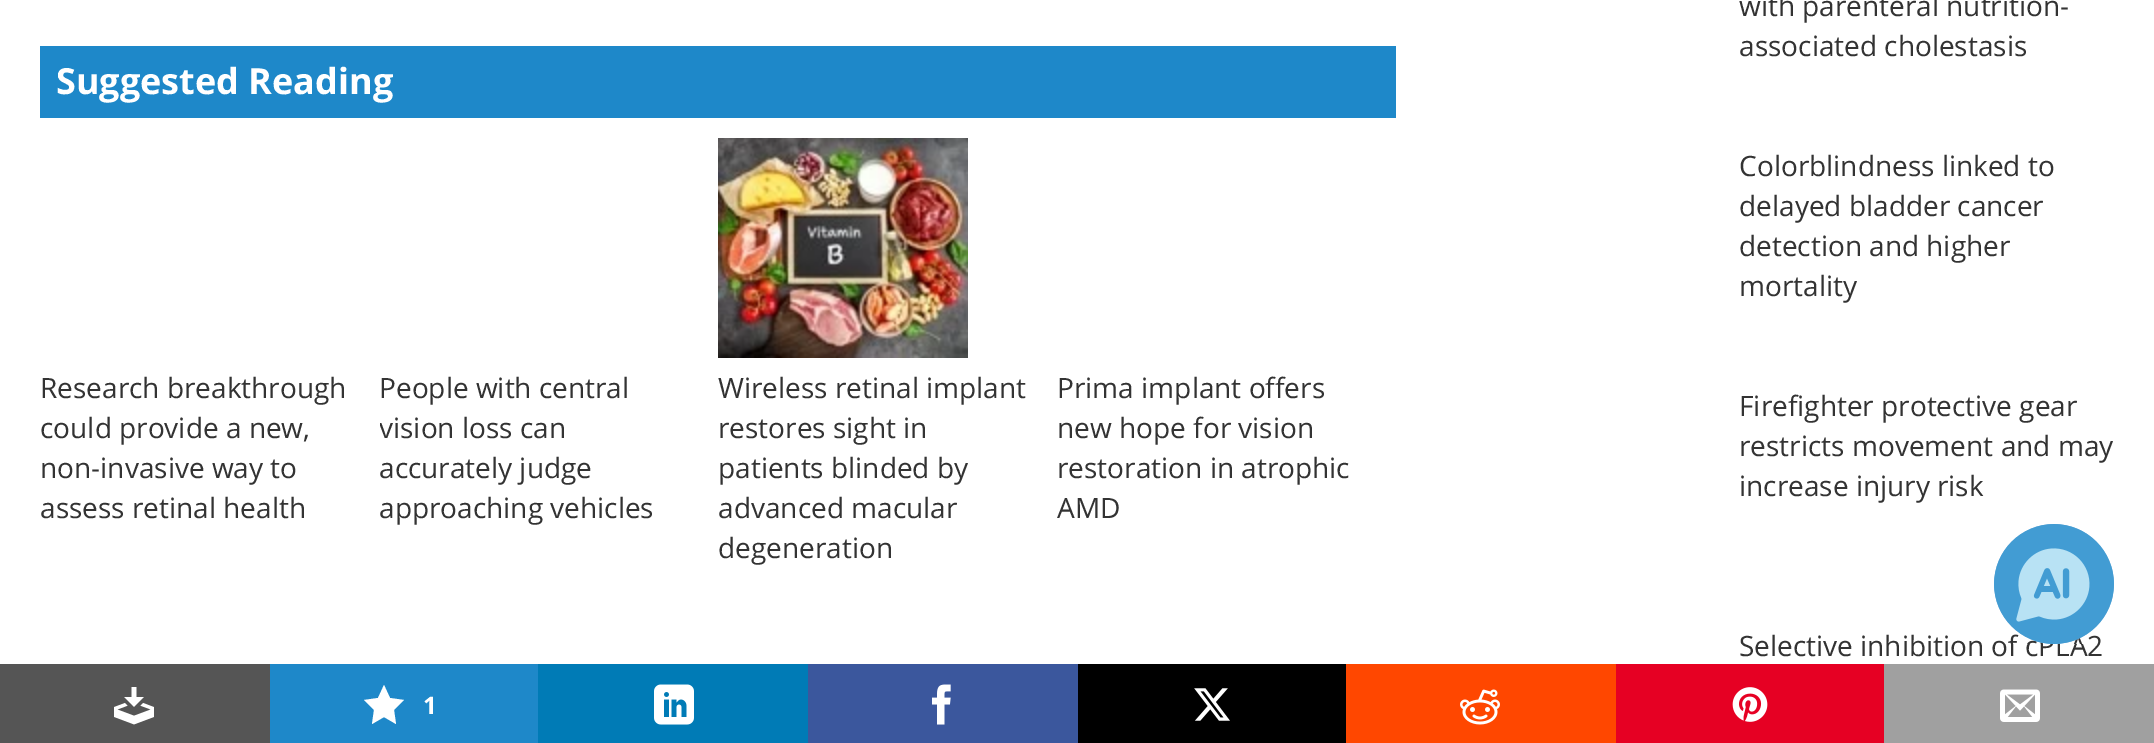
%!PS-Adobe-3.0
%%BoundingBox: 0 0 2154 743
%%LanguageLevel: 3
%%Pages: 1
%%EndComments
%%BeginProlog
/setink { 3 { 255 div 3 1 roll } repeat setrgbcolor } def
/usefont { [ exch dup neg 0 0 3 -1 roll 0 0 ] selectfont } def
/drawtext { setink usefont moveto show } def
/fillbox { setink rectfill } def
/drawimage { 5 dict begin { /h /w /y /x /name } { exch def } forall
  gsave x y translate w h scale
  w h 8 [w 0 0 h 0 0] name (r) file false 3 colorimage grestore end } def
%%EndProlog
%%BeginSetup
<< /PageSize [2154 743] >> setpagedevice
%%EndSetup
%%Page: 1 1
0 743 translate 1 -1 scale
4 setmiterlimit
0 0 2154 743 255 255 255 fillbox
40 46 1356 72 30 136 201 fillbox
(Suggested Reading) 56 94 /OpenSans-Bold 36 255 255 255 drawtext
(Research breakthrough) 40 398 /OpenSans-Regular 28 51 51 51 drawtext
(could provide a new,) 40 438 /OpenSans-Regular 28 51 51 51 drawtext
(non-invasive way to) 40 478 /OpenSans-Regular 28 51 51 51 drawtext
(assess retinal health) 40 518 /OpenSans-Regular 28 51 51 51 drawtext
(People with central) 379 398 /OpenSans-Regular 28 51 51 51 drawtext
gsave
380 368 318 200 rectclip
(vision loss can) 379 438 /OpenSans-Regular 28 51 51 51 drawtext
grestore
(accurately judge) 379 478 /OpenSans-Regular 28 51 51 51 drawtext
(approaching vehicles) 379 518 /OpenSans-Regular 28 51 51 51 drawtext
(assets/img1.rgb) 718 138 250 220 drawimage
(Wireless retinal implant) 718 398 /OpenSans-Regular 28 51 51 51 drawtext
(restores sight in) 718 438 /OpenSans-Regular 28 51 51 51 drawtext
(patients blinded by) 718 478 /OpenSans-Regular 28 51 51 51 drawtext
(advanced macular) 718 518 /OpenSans-Regular 28 51 51 51 drawtext
(degeneration) 718 558 /OpenSans-Regular 28 51 51 51 drawtext
(Prima implant offers) 1057 398 /OpenSans-Regular 28 51 51 51 drawtext
(new hope for vision) 1057 438 /OpenSans-Regular 28 51 51 51 drawtext
(restoration in atrophic) 1057 478 /OpenSans-Regular 28 51 51 51 drawtext
(AMD) 1057 518 /OpenSans-Regular 28 51 51 51 drawtext
0 664 270 79 85 85 85 fillbox
(assets/img2.rgb) 114 687 40 38 drawimage
270 664 268 79 30 136 201 fillbox
255 255 255 setink
404 700 moveto 390 698 lineto 384 685 lineto 378 698 lineto 364 700 lineto 374 710 lineto 372 724 lineto 384 717 lineto 396 724 lineto 394 710 lineto closepath fill
(1) 423 714 /OpenSans-Bold 24 255 255 255 drawtext
538 664 270 79 0 123 182 fillbox
(assets/img3.rgb) 654 684 40 41 drawimage
808 664 270 79 59 87 157 fillbox
(assets/img4.rgb) 932 684 19 41 drawimage
1078 664 268 79 0 0 0 fillbox
(assets/img5.rgb) 1194 688 36 33 drawimage
1346 664 270 79 255 71 0 fillbox
(assets/img6.rgb) 1460 689 40 36 drawimage
1616 664 268 79 230 0 35 fillbox
(assets/img7.rgb) 1732 687 36 35 drawimage
1884 664 270 79 160 160 160 fillbox
(assets/img8.rgb) 2000 689 40 33 drawimage
(with parenteral nutrition-) 1739 16 /OpenSans-Regular 28 51 51 51 drawtext
(associated cholestasis) 1739 56 /OpenSans-Regular 28 51 51 51 drawtext
(Colorblindness linked to) 1739 176 /OpenSans-Regular 28 51 51 51 drawtext
(delayed bladder cancer) 1739 216 /OpenSans-Regular 28 51 51 51 drawtext
(detection and higher) 1739 256 /OpenSans-Regular 28 51 51 51 drawtext
(mortality) 1739 296 /OpenSans-Regular 28 51 51 51 drawtext
(Firefighter protective gear) 1739 416 /OpenSans-Regular 28 51 51 51 drawtext
(restricts movement and may) 1739 456 /OpenSans-Regular 28 51 51 51 drawtext
(increase injury risk) 1739 496 /OpenSans-Regular 28 51 51 51 drawtext
(Selective inhibition of cPLA2) 1739 656 /OpenSans-Regular 28 51 51 51 drawtext
(assets/img9.rgb) 1994 524 120 120 drawimage
showpage
%%EOF
